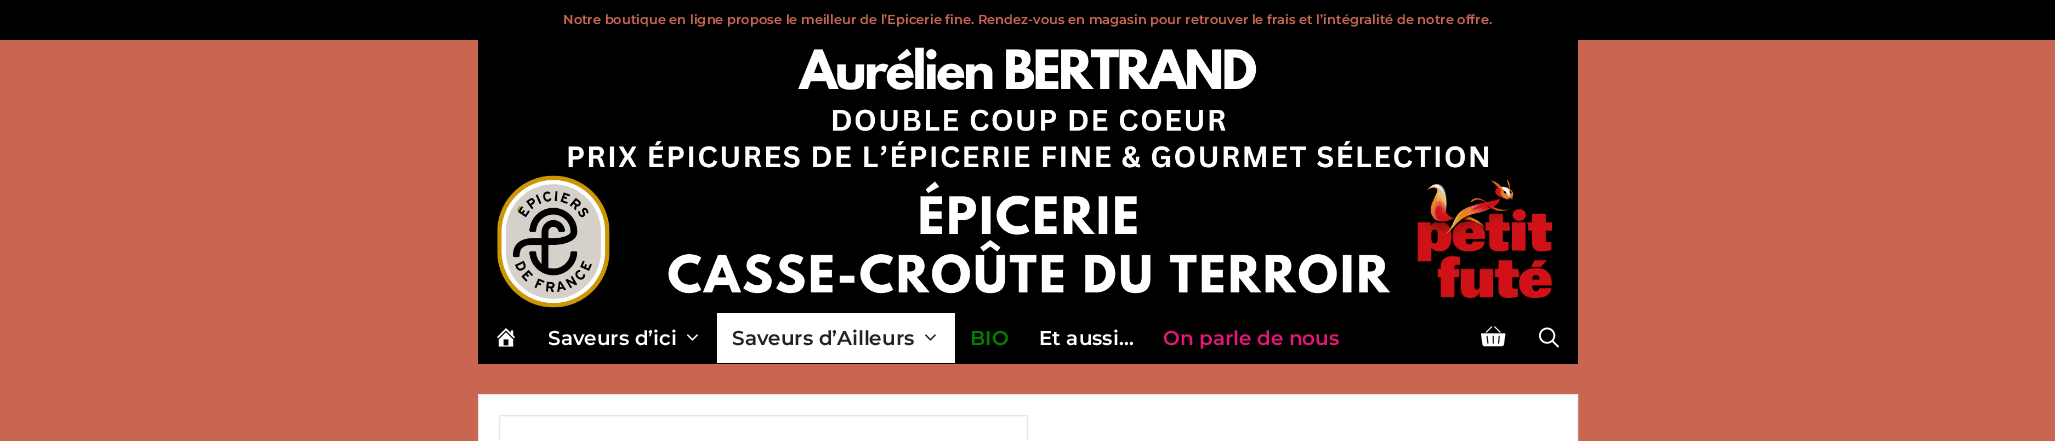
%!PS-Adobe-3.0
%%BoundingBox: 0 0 2055 441
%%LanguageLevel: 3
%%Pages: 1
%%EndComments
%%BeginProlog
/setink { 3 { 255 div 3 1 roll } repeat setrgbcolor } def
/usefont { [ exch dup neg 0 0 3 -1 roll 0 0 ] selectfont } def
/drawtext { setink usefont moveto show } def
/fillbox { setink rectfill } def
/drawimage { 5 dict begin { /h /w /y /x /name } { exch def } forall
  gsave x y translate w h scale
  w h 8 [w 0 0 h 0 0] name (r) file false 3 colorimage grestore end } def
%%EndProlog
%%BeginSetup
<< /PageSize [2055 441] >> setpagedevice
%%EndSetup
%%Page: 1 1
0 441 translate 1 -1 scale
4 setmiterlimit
0 0 2055 441 201 102 82 fillbox
0 0 2055 40 0 0 0 fillbox
(Notre boutique en ligne propose le meilleur de l’Epicerie fine. Rendez-vous en magasin pour retrouver le frais et l’intégralité de notre offre.) 563 24 /Montserrat-SemiBold 13 201 102 82 drawtext
478 40 1100 324 0 0 0 fillbox
(assets/img1.rgb) 496 47 1056 261 drawimage
(assets/img2.rgb) 497 328 18 19 drawimage
(Saveurs d’ici) 548 345 /Montserrat-SemiBold 20 255 255 255 drawtext
(assets/img3.rgb) 686 334 12 7 drawimage
717 313 238 50 255 255 255 fillbox
(Saveurs d’Ailleurs) 732 345 /Montserrat-SemiBold 20 34 34 34 drawtext
(assets/img4.rgb) 924 334 12 7 drawimage
(BIO) 970 345 /Montserrat-SemiBold 20 0 128 0 drawtext
(Et aussi…) 1039 345 /Montserrat-SemiBold 20 255 255 255 drawtext
(On parle de nous) 1163 345 /Montserrat-SemiBold 20 227 23 118 drawtext
(assets/img5.rgb) 1481 326 25 21 drawimage
(assets/img6.rgb) 1539 327 20 21 drawimage
255 255 255 setink
478.5 394.5 moveto 1577.5 394.5 lineto 1577.5 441.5 lineto 478.5 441.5 lineto closepath gsave fill grestore
235 235 235 setink
stroke
230 230 230 setink
499.5 415.5 528 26 rectstroke
showpage
%%EOF
